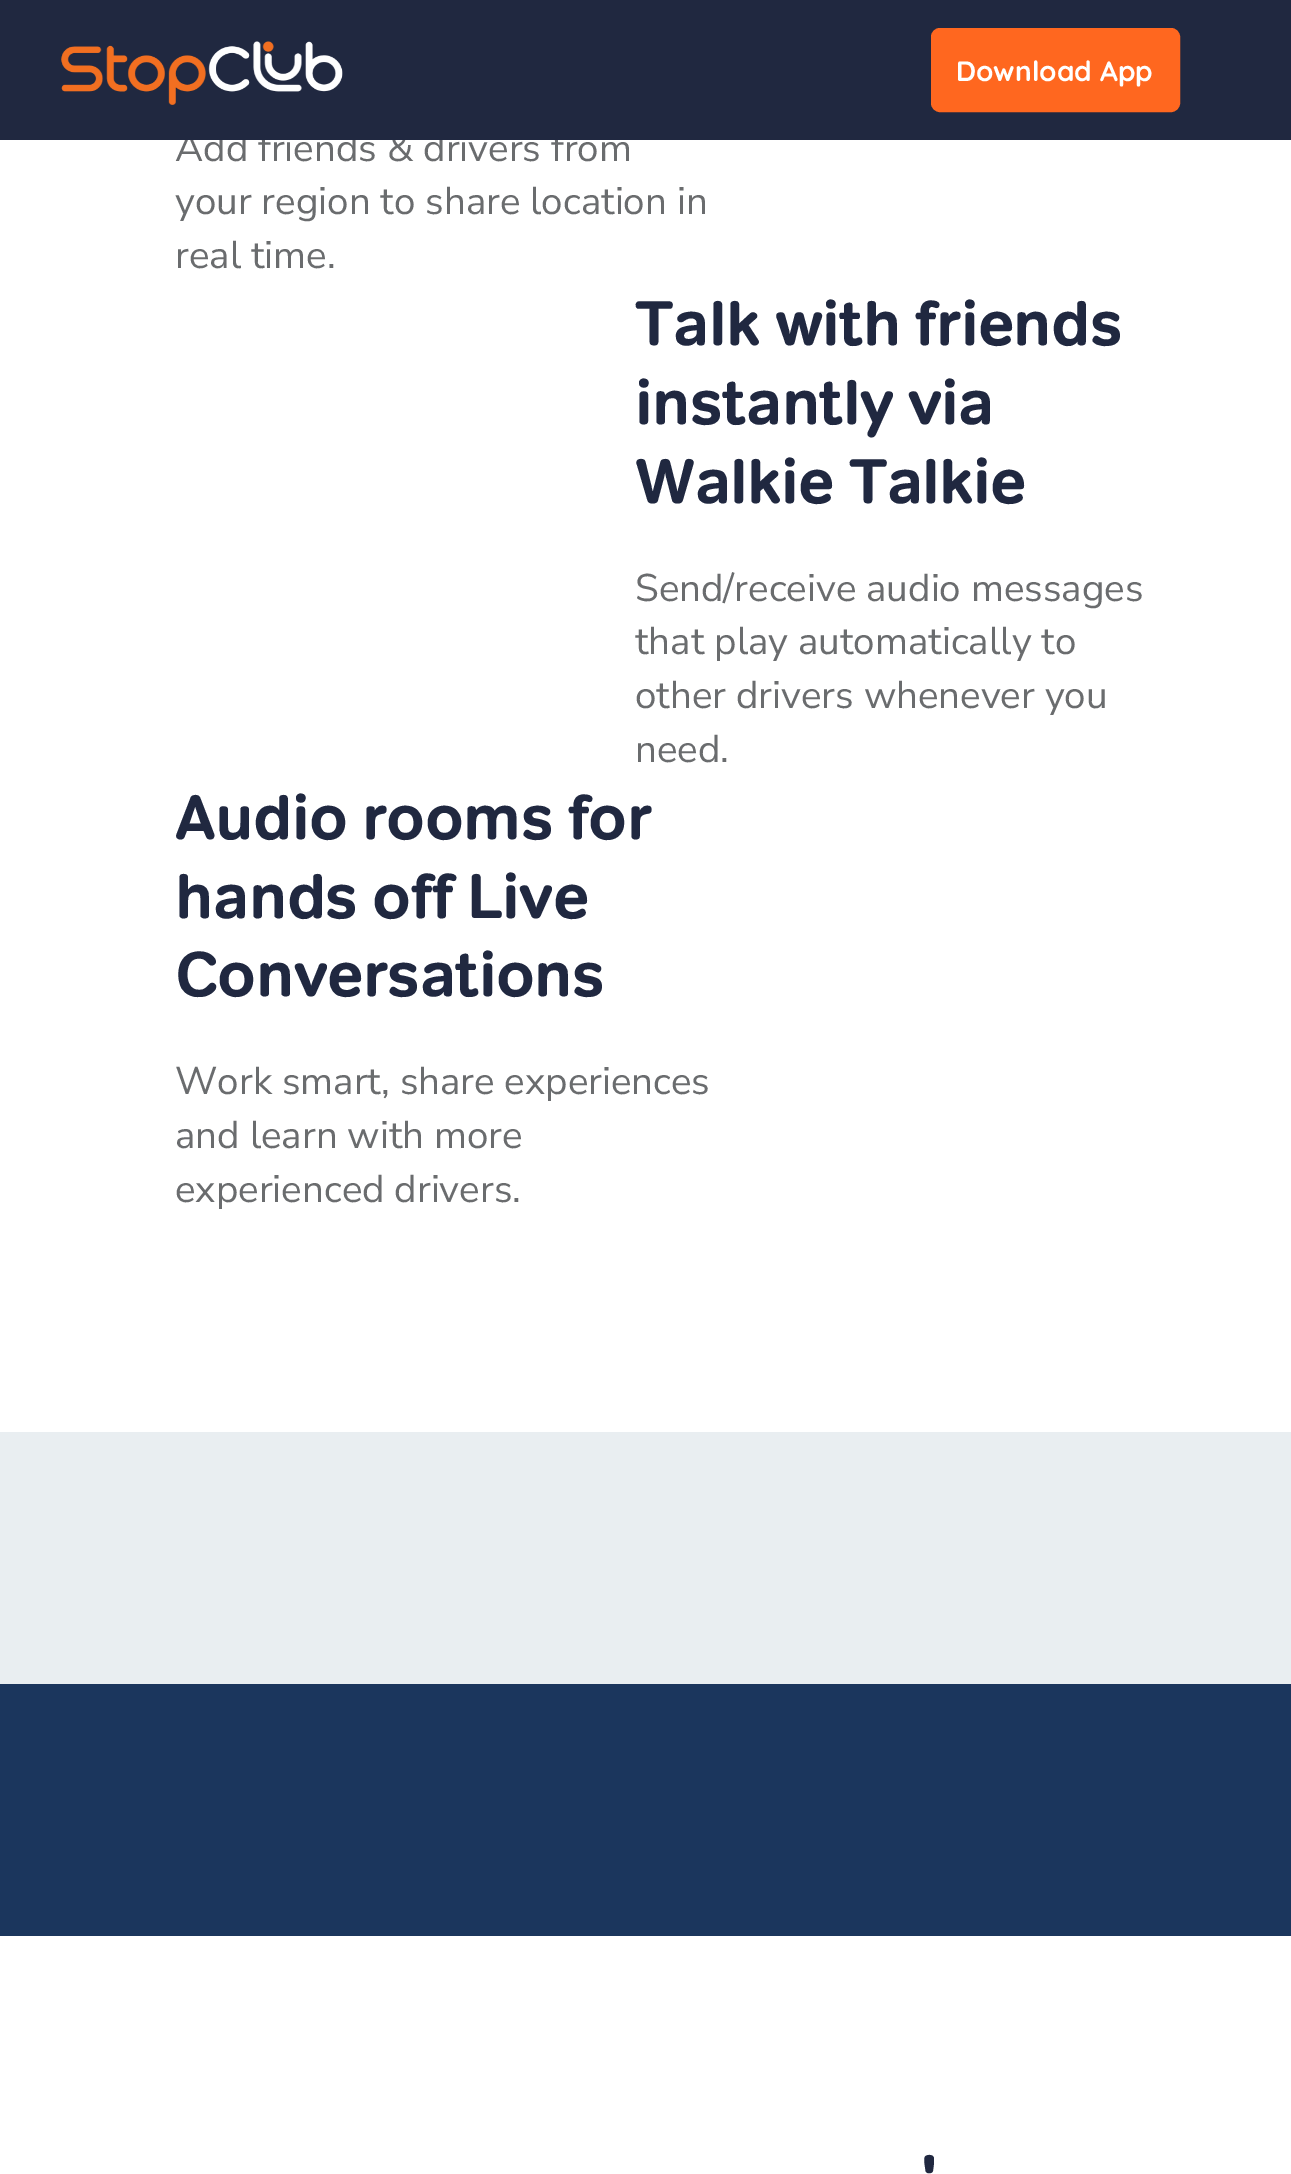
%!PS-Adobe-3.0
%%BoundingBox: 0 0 1291 2174
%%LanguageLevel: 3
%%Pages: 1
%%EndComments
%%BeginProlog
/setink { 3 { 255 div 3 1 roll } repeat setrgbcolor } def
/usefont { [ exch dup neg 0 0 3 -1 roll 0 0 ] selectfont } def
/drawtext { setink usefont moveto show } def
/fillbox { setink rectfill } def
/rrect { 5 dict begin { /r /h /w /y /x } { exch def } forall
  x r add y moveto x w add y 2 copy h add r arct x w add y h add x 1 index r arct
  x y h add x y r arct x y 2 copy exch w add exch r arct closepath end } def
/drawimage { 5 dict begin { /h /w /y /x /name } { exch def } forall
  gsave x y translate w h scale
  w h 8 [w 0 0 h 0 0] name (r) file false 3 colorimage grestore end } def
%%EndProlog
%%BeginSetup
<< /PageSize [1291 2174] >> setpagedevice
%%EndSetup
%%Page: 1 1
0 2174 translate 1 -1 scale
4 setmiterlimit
0 0 1291 2174 255 255 255 fillbox
(Add friends & drivers from) 175 161 /NunitoSans-Regular 38.5 106 108 110 drawtext
0 0 1291 140 32 40 64 fillbox
(assets/img1.rgb) 61 41 282 64 drawimage
255 103 31 setink
933 30 245 80 7 rrect gsave fill grestore
4 setlinewidth
stroke
(Download App) 956 81 /Quicksand-Bold 28 255 255 255 drawtext
(your region to share location in) 175 214 /NunitoSans-Regular 38.5 106 108 110 drawtext
(real time.) 175 268 /NunitoSans-Regular 38.5 106 108 110 drawtext
/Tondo-Bold 63 usefont
32 40 64 setink
635 345 moveto -0.6 0 (Talk with friends) ashow
635 424 moveto -0.6 0 (instantly via) ashow
635 503 moveto -0.6 0 (Walkie Talkie) ashow
(Send/receive audio messages) 635 601 /NunitoSans-Regular 38.5 106 108 110 drawtext
(that play automatically to) 635 654 /NunitoSans-Regular 38.5 106 108 110 drawtext
(other drivers whenever you) 635 708 /NunitoSans-Regular 38.5 106 108 110 drawtext
(need.) 635 762 /NunitoSans-Regular 38.5 106 108 110 drawtext
/Tondo-Bold 63 usefont
32 40 64 setink
175 839 moveto -0.6 0 (Audio rooms for) ashow
175 918 moveto -0.6 0 (hands off Live) ashow
175 996 moveto -0.6 0 (Conversations) ashow
(Work smart, share experiences) 175 1094 /NunitoSans-Regular 38.5 106 108 110 drawtext
(and learn with more) 175 1148 /NunitoSans-Regular 38.5 106 108 110 drawtext
(experienced drivers.) 175 1202 /NunitoSans-Regular 38.5 106 108 110 drawtext
0 1432 1291 252 233 238 241 fillbox
0 1684 1291 252 27 54 93 fillbox
/Tondo-Bold 63 usefont
32 40 64 setink
921 2199 moveto -0.6 0 (') ashow
showpage
%%EOF
